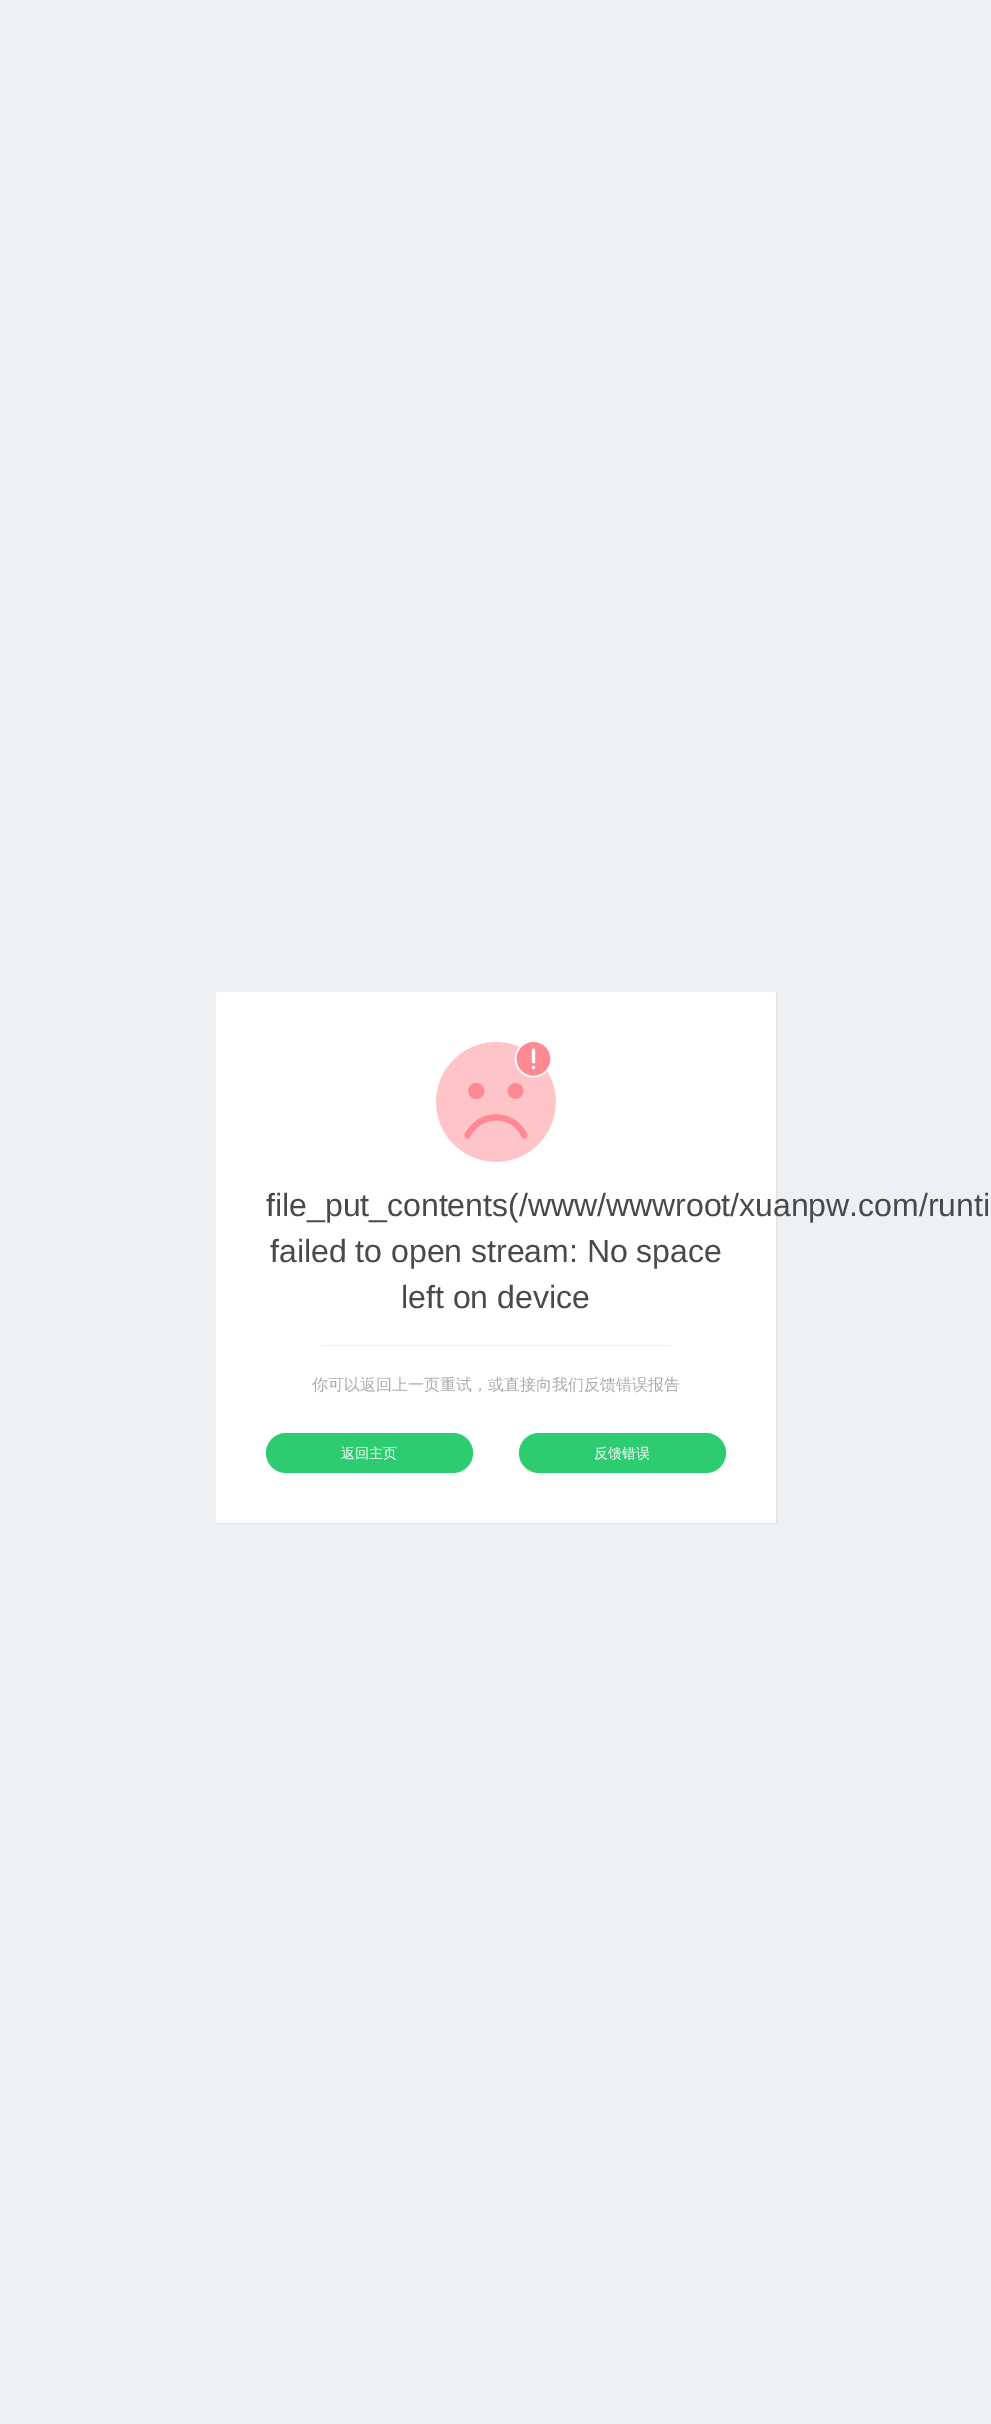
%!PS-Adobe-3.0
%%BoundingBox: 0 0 991 2424
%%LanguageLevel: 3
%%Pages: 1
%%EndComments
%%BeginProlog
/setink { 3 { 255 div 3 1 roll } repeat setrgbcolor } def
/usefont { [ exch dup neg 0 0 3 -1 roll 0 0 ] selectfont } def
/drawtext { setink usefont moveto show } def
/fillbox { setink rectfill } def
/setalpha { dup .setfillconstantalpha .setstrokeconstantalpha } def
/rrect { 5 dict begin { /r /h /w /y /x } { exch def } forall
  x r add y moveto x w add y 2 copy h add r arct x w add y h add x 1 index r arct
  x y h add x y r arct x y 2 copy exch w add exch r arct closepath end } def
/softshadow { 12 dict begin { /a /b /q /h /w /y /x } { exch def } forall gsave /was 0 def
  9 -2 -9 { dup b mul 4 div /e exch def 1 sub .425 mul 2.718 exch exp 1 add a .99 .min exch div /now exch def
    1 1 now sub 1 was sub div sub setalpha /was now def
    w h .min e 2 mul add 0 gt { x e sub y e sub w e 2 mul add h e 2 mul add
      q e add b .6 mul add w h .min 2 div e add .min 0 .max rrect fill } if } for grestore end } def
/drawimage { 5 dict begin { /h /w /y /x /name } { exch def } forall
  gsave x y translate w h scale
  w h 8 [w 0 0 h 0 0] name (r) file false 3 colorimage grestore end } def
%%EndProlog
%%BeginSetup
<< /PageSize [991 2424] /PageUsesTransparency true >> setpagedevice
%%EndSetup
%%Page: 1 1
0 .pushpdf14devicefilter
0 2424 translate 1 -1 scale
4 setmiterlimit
0 0 991 2424 237 241 244 fillbox
99 99 99 setink
217 993 560 531 2 0.5 0.1 softshadow
255 255 255 setink
216 992 560 531 2 rrect fill
(assets/img1.rgb) 436 1042 120 120 drawimage
(file_put_contents\(/www/wwwroot/xuanpw.com/runti) 266 1216 /LiberationSans-Regular 32 73 73 73 drawtext
(failed to open stream: No space) 270 1262 /LiberationSans-Regular 32 73 73 73 drawtext
(left on device) 401 1308 /LiberationSans-Regular 32 73 73 73 drawtext
321 1345 350 1 238 238 238 fillbox
(你可以返回上一页重试，或直接向我们反馈错误报告) 312 1390 /WenQuanYiZenHei-Medium 16 170 170 170 drawtext
46 204 113 setink
266 1433 207 40 20 rrect fill
(返回主页) 341 1458 /WenQuanYiZenHei-Medium 14 255 255 255 drawtext
46 204 113 setink
519 1433 207 40 20 rrect fill
(反馈错误) 594 1458 /WenQuanYiZenHei-Medium 14 255 255 255 drawtext
.poppdf14devicefilter showpage
%%EOF
